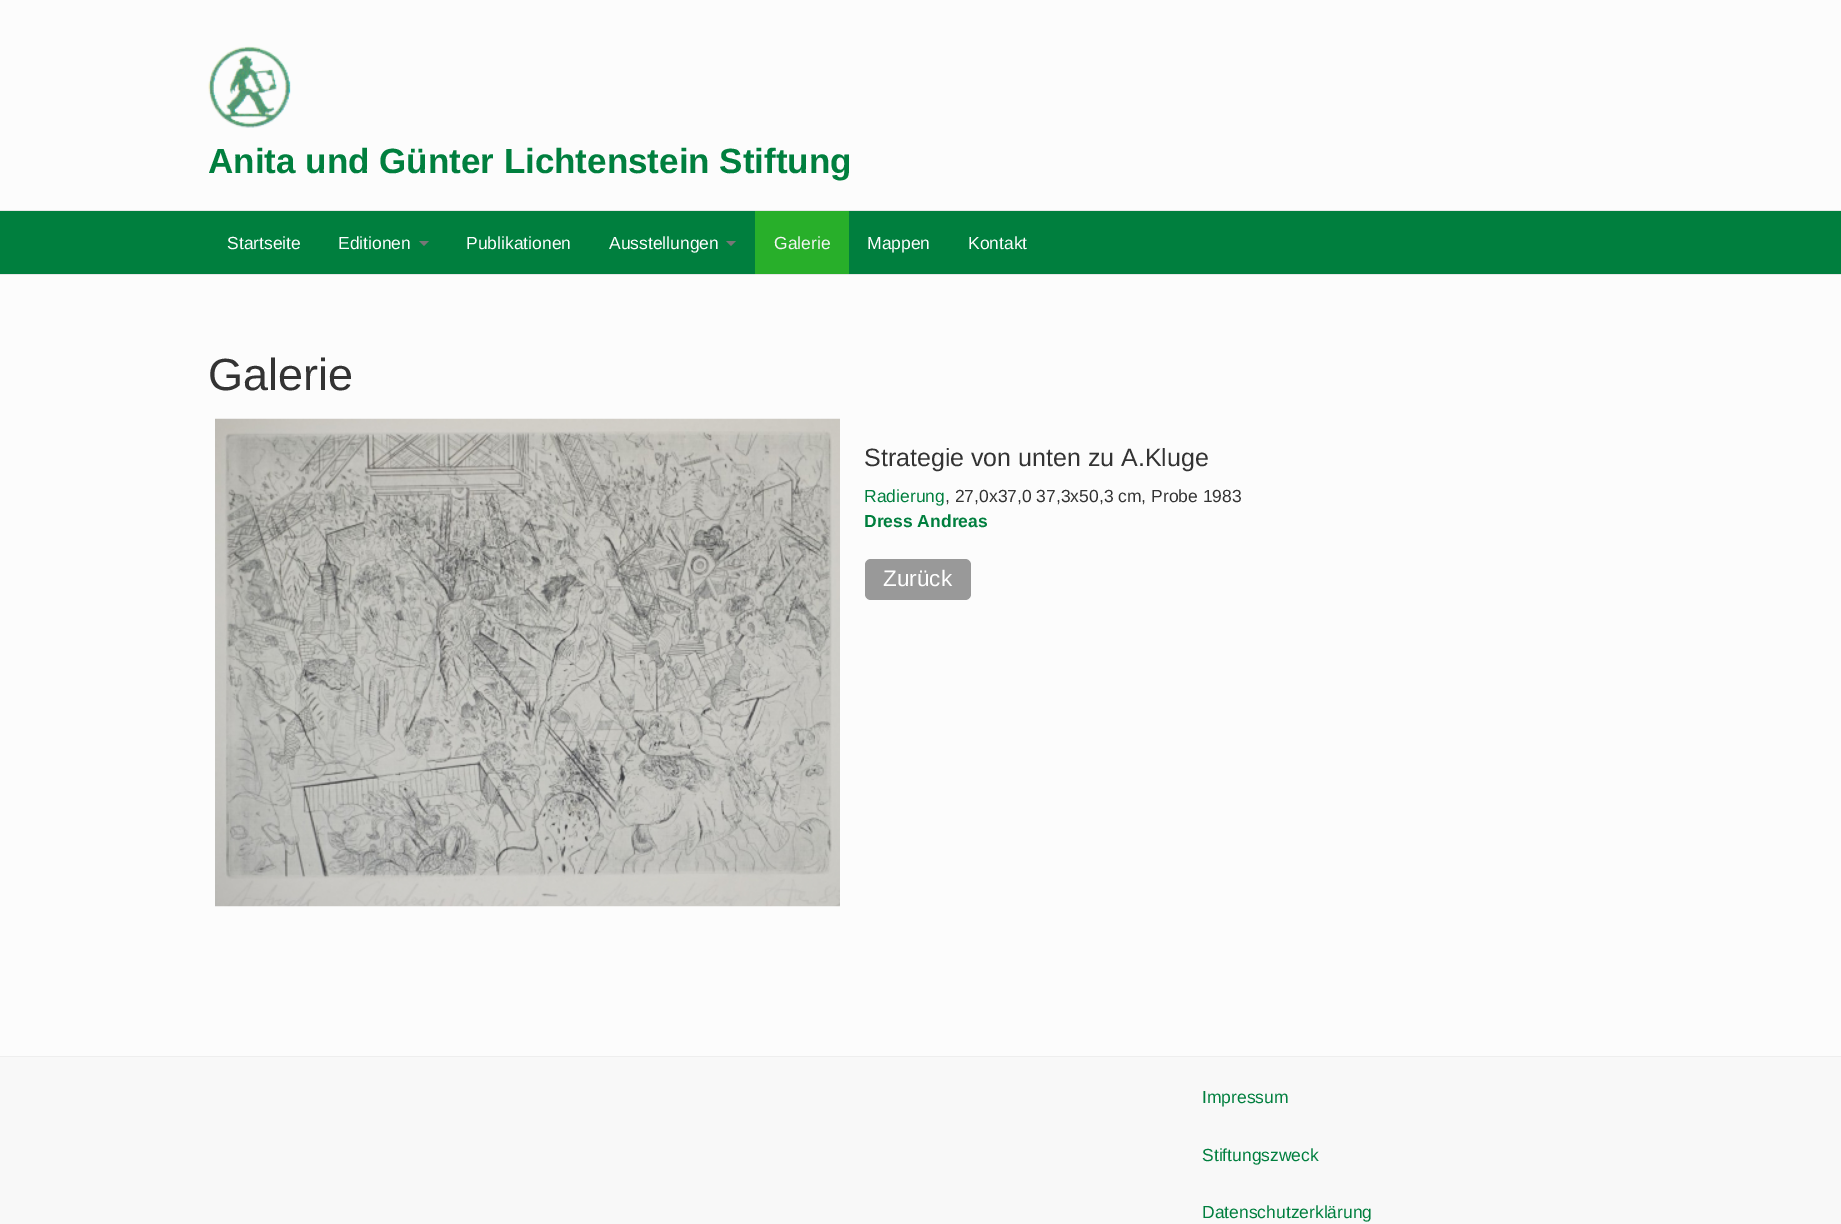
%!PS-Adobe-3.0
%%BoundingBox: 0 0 1841 1224
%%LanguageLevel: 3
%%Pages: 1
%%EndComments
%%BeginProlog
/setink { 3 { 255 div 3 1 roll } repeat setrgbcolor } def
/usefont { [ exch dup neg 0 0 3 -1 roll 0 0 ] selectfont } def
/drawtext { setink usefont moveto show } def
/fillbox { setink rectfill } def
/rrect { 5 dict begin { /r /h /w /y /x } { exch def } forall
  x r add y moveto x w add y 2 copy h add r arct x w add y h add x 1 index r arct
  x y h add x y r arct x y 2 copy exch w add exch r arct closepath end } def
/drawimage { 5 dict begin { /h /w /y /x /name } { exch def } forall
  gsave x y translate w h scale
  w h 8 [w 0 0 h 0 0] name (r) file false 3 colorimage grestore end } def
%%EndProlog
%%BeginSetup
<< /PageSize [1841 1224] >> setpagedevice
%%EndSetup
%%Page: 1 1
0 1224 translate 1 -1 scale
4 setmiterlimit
0 0 1841 1224 252 252 252 fillbox
(assets/img1.rgb) 208 46 83 82 drawimage
(Anita und Günter Lichtenstein Stiftung) 208 173 /LiberationSans-Bold 35 0 127 62 drawtext
0 211 1841 63 0 127 62 fillbox
0 210 1841 1 231 231 231 fillbox
0 274 1841 1 231 231 231 fillbox
(Startseite) 227 249 /LiberationSans-Regular 17.5 254 254 254 drawtext
(Editionen) 338 249 /LiberationSans-Regular 17.5 254 254 254 drawtext
119 119 119 setink
419 241 moveto 429 241 lineto 424 246 lineto closepath fill
(Publikationen) 466 249 /LiberationSans-Regular 17.5 254 254 254 drawtext
(Ausstellungen) 609 249 /LiberationSans-Regular 17.5 254 254 254 drawtext
119 119 119 setink
726 241 moveto 736 241 lineto 731 246 lineto closepath fill
755 211 94 63 40 175 42 fillbox
(Galerie) 774 249 /LiberationSans-Regular 17.5 245 245 245 drawtext
(Mappen) 867 249 /LiberationSans-Regular 17.5 254 254 254 drawtext
(Kontakt) 968 249 /LiberationSans-Regular 17.5 254 254 254 drawtext
(Galerie) 208 390 /LiberationSans-Regular 45 51 51 51 drawtext
(assets/img2.rgb) 215 418 625 489 drawimage
(Strategie von unten zu A.Kluge) 864 466 /LiberationSans-Regular 25 51 51 51 drawtext
(Radierung) 864 502 /LiberationSans-Regular 17.5 0 127 62 drawtext
(, 27,0x37,0 37,3x50,3 cm, Probe 1983) 945 502 /LiberationSans-Regular 17.5 51 51 51 drawtext
(Dress Andreas) 864 527 /LiberationSans-Bold 17.5 0 127 62 drawtext
153 153 153 setink
865 559 106 41 6 rrect fill
(Zurück) 883 586 /LiberationSans-Regular 22.5 254 254 254 drawtext
0 1057 1841 167 248 248 248 fillbox
0 1056 1841 1 238 238 238 fillbox
(Impressum) 1202 1103 /LiberationSans-Regular 17.5 0 127 62 drawtext
(Stiftungszweck) 1202 1161 /LiberationSans-Regular 17.5 0 127 62 drawtext
(Datenschutzerklärung) 1202 1218 /LiberationSans-Regular 17.5 0 127 62 drawtext
showpage
%%EOF
